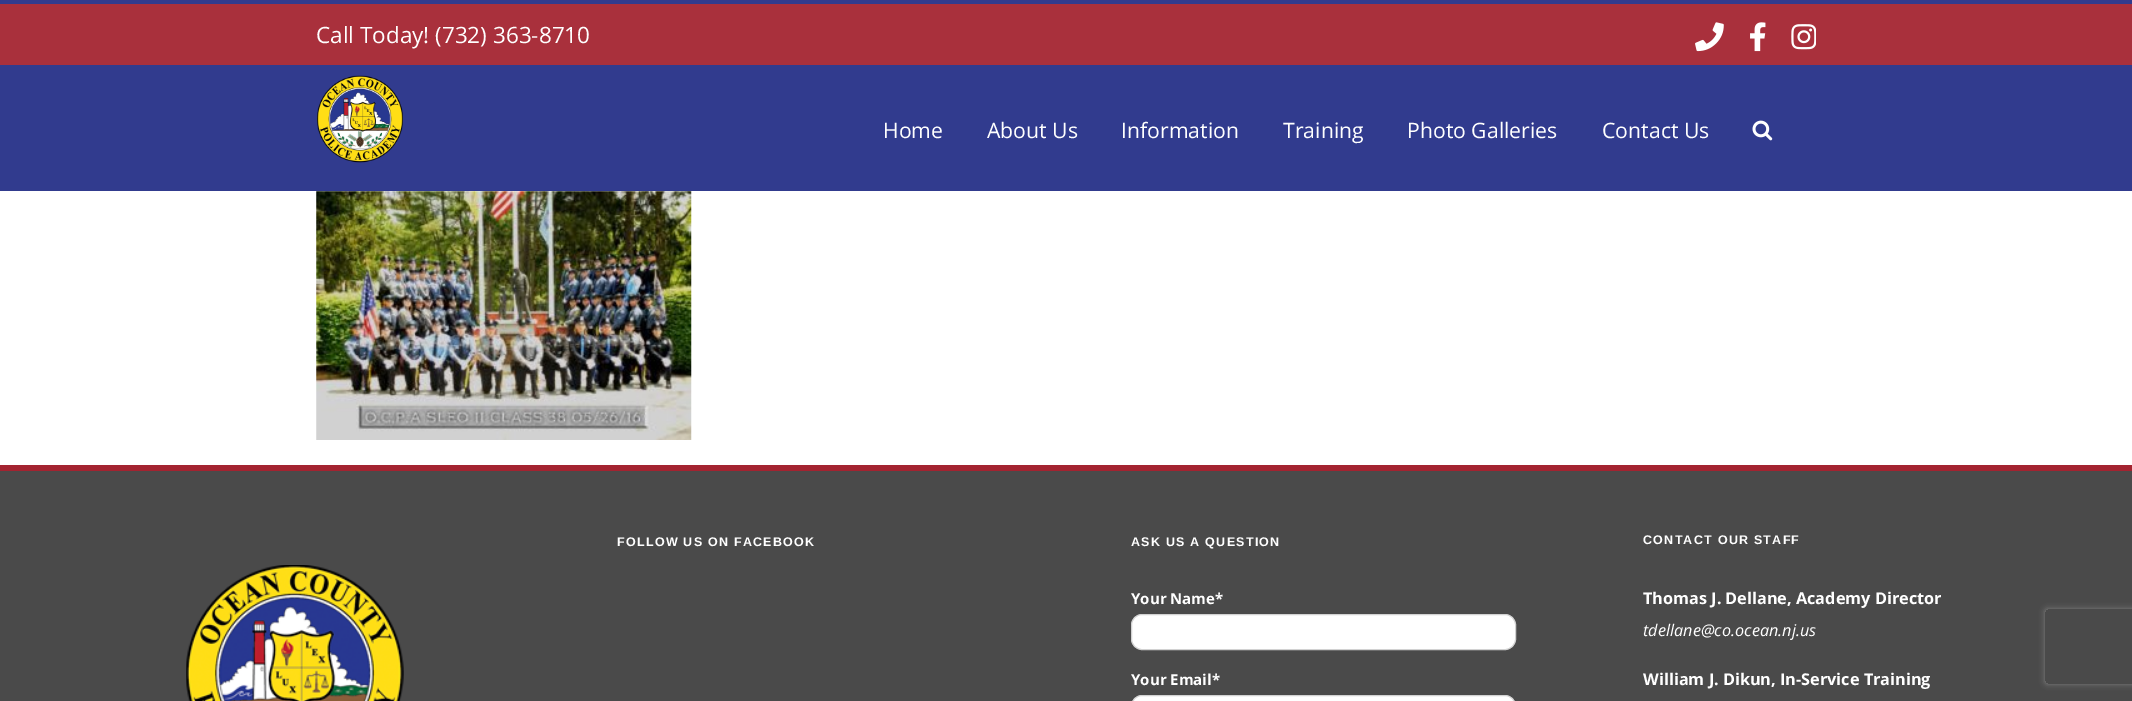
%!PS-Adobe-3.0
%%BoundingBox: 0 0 2132 701
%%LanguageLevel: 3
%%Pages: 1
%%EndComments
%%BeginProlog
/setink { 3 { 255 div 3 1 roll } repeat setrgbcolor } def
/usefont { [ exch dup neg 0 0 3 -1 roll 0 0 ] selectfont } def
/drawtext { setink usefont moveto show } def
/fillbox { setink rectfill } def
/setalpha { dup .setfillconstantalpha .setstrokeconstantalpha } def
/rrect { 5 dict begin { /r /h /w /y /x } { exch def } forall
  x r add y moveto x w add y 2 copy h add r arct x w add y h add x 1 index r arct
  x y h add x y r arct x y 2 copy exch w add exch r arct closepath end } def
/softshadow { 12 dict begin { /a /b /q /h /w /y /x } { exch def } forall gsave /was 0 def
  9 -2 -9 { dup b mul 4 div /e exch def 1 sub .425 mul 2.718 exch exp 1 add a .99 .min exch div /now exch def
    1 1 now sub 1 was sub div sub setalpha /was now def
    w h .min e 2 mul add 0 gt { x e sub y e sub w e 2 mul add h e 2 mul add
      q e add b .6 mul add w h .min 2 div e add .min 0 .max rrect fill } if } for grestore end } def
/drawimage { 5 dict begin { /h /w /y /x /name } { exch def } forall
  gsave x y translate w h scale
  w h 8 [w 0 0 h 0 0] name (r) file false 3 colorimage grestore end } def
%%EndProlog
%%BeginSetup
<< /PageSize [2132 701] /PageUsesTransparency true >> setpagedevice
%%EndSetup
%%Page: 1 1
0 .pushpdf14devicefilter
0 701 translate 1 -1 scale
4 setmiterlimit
0 0 2132 701 255 255 255 fillbox
0 4 2132 61 169 48 60 fillbox
0 0 2132 4 49 59 142 fillbox
(Call Today! \(732\) 363-8710) 316 43 /OpenSans-Regular 22.5 255 255 255 drawtext
(assets/img1.rgb) 1695 22 29 30 drawimage
(assets/img2.rgb) 1750 22 16 30 drawimage
(assets/img3.rgb) 1791 24 25 26 drawimage
0 65 2132 126 49 59 142 fillbox
(assets/img4.rgb) 317 75 86 88 drawimage
(Home) 883 138 /OpenSans-Regular 21.25 255 255 255 drawtext
(About Us) 987 138 /OpenSans-Regular 21.25 255 255 255 drawtext
(Information) 1121 138 /OpenSans-Regular 21.25 255 255 255 drawtext
(Training) 1283 138 /OpenSans-Regular 21.25 255 255 255 drawtext
(Photo Galleries) 1407 138 /OpenSans-Regular 21.25 255 255 255 drawtext
(Contact Us) 1602 138 /OpenSans-Regular 21.25 255 255 255 drawtext
(assets/img5.rgb) 1752 120 21 21 drawimage
(assets/img6.rgb) 316 191 376 249 drawimage
0 471 2132 230 74 74 74 fillbox
0 465 2132 6 163 35 48 fillbox
(assets/img7.rgb) 186 565 218 136 drawimage
/LiberationSans-Bold 12.5 usefont
255 255 255 setink
617 546 moveto 1.25 0 (FOLLOW US ON FACEBOOK) ashow
1131 546 moveto 1.25 0 (ASK US A QUESTION) ashow
(Your Name*) 1131 604 /OpenSans-Bold 15 255 255 255 drawtext
1131.5 614.5 384 35 10.5 rrect gsave fill grestore
210 210 210 setink
stroke
(Your Email*) 1131 685 /OpenSans-Bold 15 255 255 255 drawtext
1131.5 695.5 384 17 10.5 rrect gsave fill grestore
210 210 210 setink
stroke
/LiberationSans-Bold 12.5 usefont
255 255 255 setink
1643 544 moveto 1.25 0 (CONTACT OUR STAFF) ashow
(Thomas J. Dellane, Academy Director) 1643 604 /OpenSans-Bold 16.25 255 255 255 drawtext
(tdellane@co.ocean.nj.us) 1643 636 /OpenSans-Italic 16.25 255 255 255 drawtext
(William J. Dikun, In-Service Training) 1643 685 /OpenSans-Bold 16.25 255 255 255 drawtext
gsave
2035 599 moveto 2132 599 lineto 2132 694 lineto 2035 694 lineto closepath 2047.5 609 moveto 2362.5 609 lineto 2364 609 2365 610 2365 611.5 curveto 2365 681.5 lineto 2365 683 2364 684 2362.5 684 curveto 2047.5 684 lineto 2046 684 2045 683 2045 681.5 curveto 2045 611.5 lineto 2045 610 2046 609 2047.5 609 curveto closepath eoclip newpath
128 128 128 setink
2045 609 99 75 2.5 3 1 softshadow
grestore
.poppdf14devicefilter showpage
%%EOF
